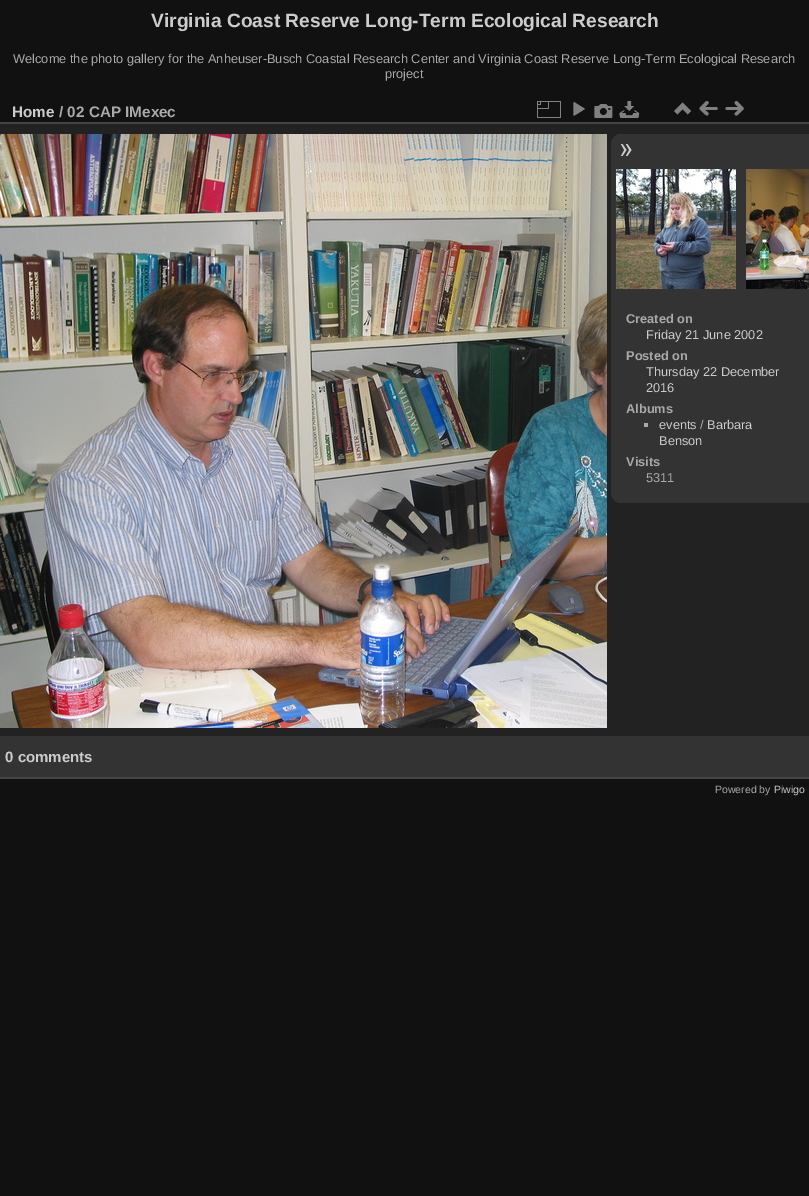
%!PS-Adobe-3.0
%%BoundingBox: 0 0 809 1196
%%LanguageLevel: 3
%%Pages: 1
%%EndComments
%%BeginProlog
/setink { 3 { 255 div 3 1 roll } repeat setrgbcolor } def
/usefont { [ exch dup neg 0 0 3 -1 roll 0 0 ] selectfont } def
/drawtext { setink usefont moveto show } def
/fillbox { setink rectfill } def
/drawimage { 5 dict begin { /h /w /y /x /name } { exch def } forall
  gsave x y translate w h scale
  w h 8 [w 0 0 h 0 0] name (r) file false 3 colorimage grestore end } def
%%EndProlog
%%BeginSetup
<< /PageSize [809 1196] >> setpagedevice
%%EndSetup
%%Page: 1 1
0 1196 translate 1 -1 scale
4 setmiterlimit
0 0 809 1196 17 17 17 fillbox
(Virginia Coast Reserve Long-Term Ecological Research) 151 27 /LiberationSans-Bold 19.2 204 204 204 drawtext
(Welcome the photo gallery for the Anheuser-Busch Coastal Research Center and Virginia Coast Reserve Long-Term Ecological Research) 13 63 /LiberationSans-Regular 12.8 170 170 170 drawtext
(project) 385 78 /LiberationSans-Regular 12.8 170 170 170 drawtext
0 124 809 612 34 34 34 fillbox
0 777 809 2 68 68 68 fillbox
0 122 809 2 68 68 68 fillbox
(Home) 12 117 /LiberationSans-Bold 15.25 204 204 204 drawtext
(/ 02 CAP IMexec) 59 117 /LiberationSans-Bold 15.25 170 170 170 drawtext
(assets/img1.rgb) 537 101 24 17 drawimage
(assets/img2.rgb) 573 102 12 14 drawimage
(assets/img3.rgb) 594 104 19 14 drawimage
(assets/img4.rgb) 619 101 21 17 drawimage
(assets/img5.rgb) 674 102 17 13 drawimage
(assets/img6.rgb) 699 101 19 15 drawimage
(assets/img7.rgb) 725 101 19 15 drawimage
(assets/img8.rgb) 0 134 607 594 drawimage
51 51 51 setink
621 134 moveto 809 134 lineto 809 503 lineto 621 503 lineto 615.5 503 611 498.5 611 493 curveto 611 144 lineto 611 138.5 615.5 134 621 134 curveto closepath fill
(assets/img9.rgb) 620 144 12 12 drawimage
(assets/img10.rgb) 616 169 120 120 drawimage
(assets/img11.rgb) 746 169 63 120 drawimage
(Created on) 626 323 /LiberationSans-Bold 12.8 170 170 170 drawtext
(Friday 21 June 2002) 646 339 /LiberationSans-Regular 12.8 204 204 204 drawtext
(Posted on) 626 360 /LiberationSans-Bold 12.8 170 170 170 drawtext
(Thursday 22 December) 646 376 /LiberationSans-Regular 12.8 204 204 204 drawtext
(2016) 646 392 /LiberationSans-Regular 12.8 204 204 204 drawtext
(Albums) 626 413 /LiberationSans-Bold 12.8 170 170 170 drawtext
644 423 4 4 170 170 170 fillbox
(events) 659 429 /LiberationSans-Regular 12.8 204 204 204 drawtext
(/) 700 429 /LiberationSans-Regular 12.8 170 170 170 drawtext
(Barbara) 707 429 /LiberationSans-Regular 12.8 204 204 204 drawtext
(Benson) 659 445 /LiberationSans-Regular 12.8 204 204 204 drawtext
(Visits) 626 466 /LiberationSans-Bold 12.8 170 170 170 drawtext
(5311) 646 482 /LiberationSans-Regular 12.8 170 170 170 drawtext
0 736 809 41 51 51 51 fillbox
(0 comments) 5 762 /LiberationSans-Bold 15 204 204 204 drawtext
(Powered by) 715 793 /LiberationSans-Regular 10.5 170 170 170 drawtext
(Piwigo) 774 793 /LiberationSans-Regular 10.5 204 204 204 drawtext
showpage
%%EOF
